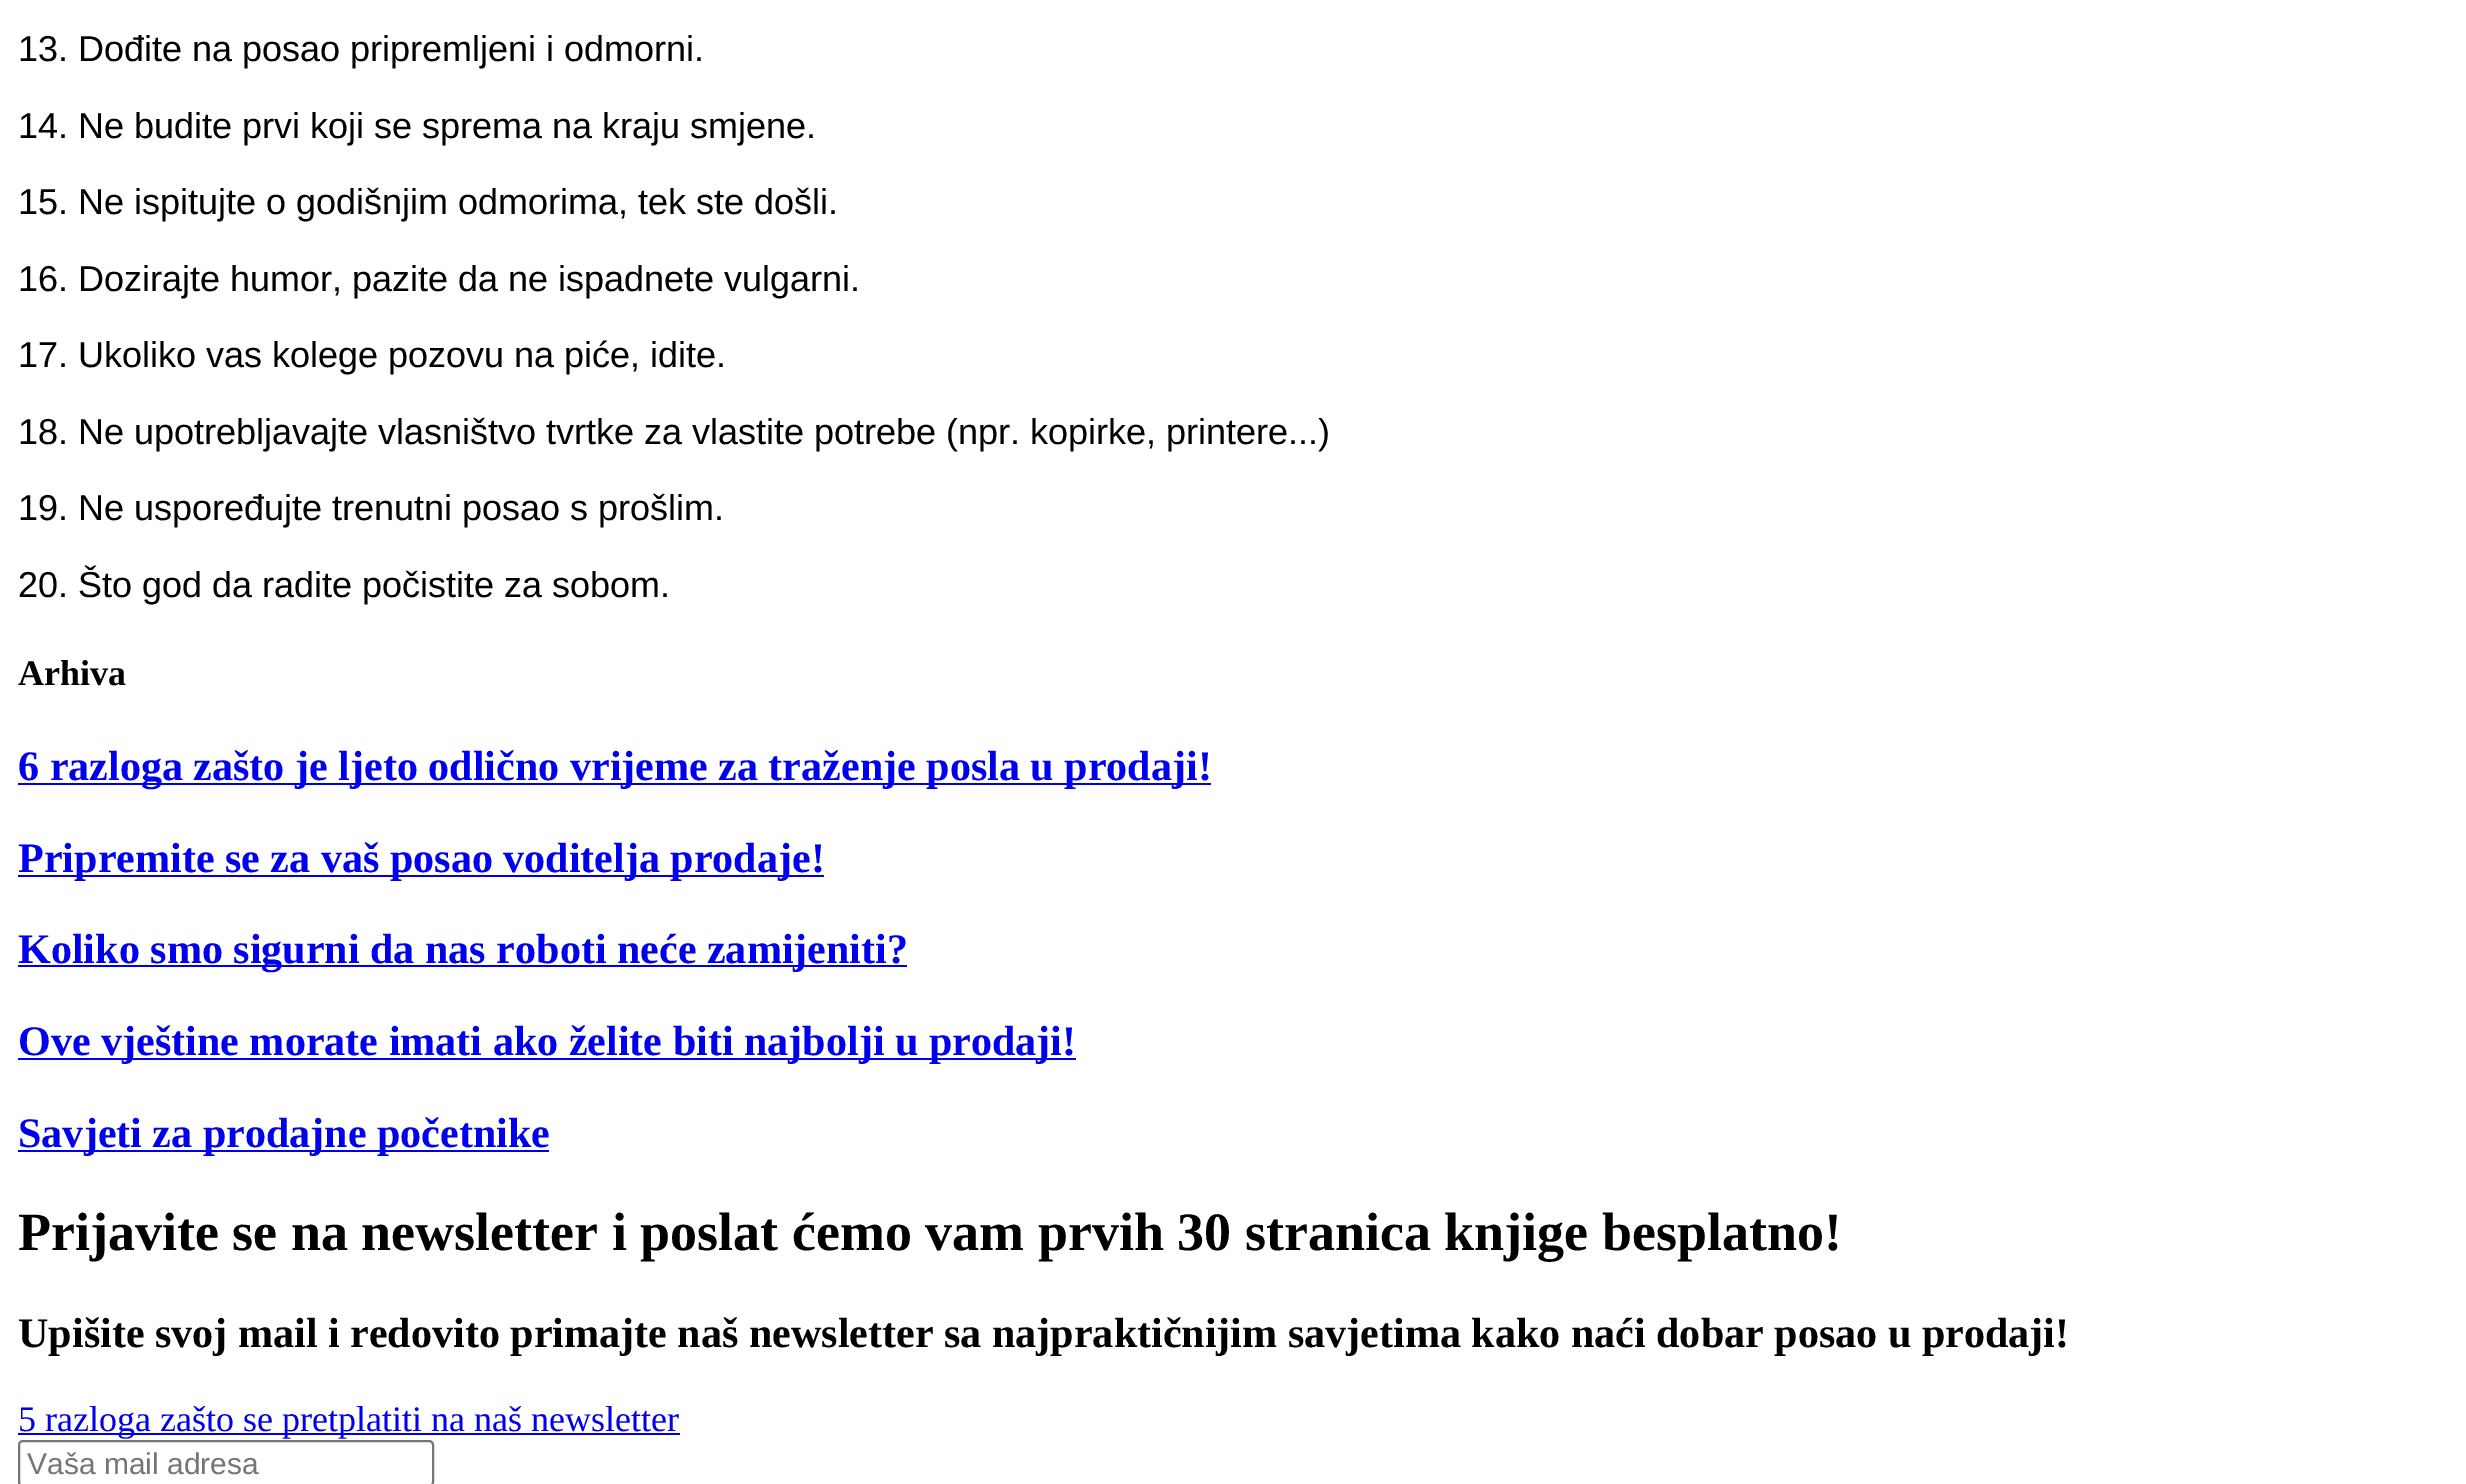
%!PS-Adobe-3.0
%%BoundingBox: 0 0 2466 1484
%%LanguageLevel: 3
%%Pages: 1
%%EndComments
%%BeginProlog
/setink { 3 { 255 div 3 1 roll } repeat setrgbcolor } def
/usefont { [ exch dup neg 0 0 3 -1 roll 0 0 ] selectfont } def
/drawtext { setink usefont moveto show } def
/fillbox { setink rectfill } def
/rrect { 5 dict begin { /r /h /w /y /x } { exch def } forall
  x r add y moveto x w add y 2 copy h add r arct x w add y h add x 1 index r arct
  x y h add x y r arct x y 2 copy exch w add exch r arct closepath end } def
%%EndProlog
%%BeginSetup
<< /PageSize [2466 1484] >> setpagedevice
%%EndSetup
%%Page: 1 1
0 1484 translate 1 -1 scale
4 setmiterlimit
0 0 2466 1484 255 255 255 fillbox
(13. Dođite na posao pripremljeni i odmorni.) 18 61 /LiberationSans-Regular 36 0 0 0 drawtext
(14. Ne budite prvi koji se sprema na kraju smjene.) 18 138 /LiberationSans-Regular 36 0 0 0 drawtext
(15. Ne ispitujte o godišnjim odmorima, tek ste došli.) 18 214 /LiberationSans-Regular 36 0 0 0 drawtext
(16. Dozirajte humor, pazite da ne ispadnete vulgarni.) 18 291 /LiberationSans-Regular 36 0 0 0 drawtext
(17. Ukoliko vas kolege pozovu na piće, idite.) 18 367 /LiberationSans-Regular 36 0 0 0 drawtext
(18. Ne upotrebljavajte vlasništvo tvrtke za vlastite potrebe \(npr. kopirke, printere...\)) 18 444 /LiberationSans-Regular 36 0 0 0 drawtext
(19. Ne uspoređujte trenutni posao s prošlim.) 18 520 /LiberationSans-Regular 36 0 0 0 drawtext
(20. Što god da radite počistite za sobom.) 18 597 /LiberationSans-Regular 36 0 0 0 drawtext
(Arhiva) 18 685 /LiberationSerif-Bold 36 0 0 0 drawtext
18 783 1193 2 0 0 238 fillbox
(6 razloga zašto je ljeto odlično vrijeme za traženje posla u prodaji!) 18 780 /LiberationSerif-Bold 42.1 0 0 238 drawtext
18 875 806 2 0 0 238 fillbox
(Pripremite se za vaš posao voditelja prodaje!) 18 872 /LiberationSerif-Bold 42.1 0 0 238 drawtext
18 965 889 2 0 0 238 fillbox
(Koliko smo sigurni da nas roboti neće zamijeniti?) 18 963 /LiberationSerif-Bold 42.1 0 0 238 drawtext
18 1058 1058 2 0 0 238 fillbox
(Ove vještine morate imati ako želite biti najbolji u prodaji!) 18 1055 /LiberationSerif-Bold 42.1 0 0 238 drawtext
18 1150 531 2 0 0 238 fillbox
(Savjeti za prodajne početnike) 18 1147 /LiberationSerif-Bold 42.1 0 0 238 drawtext
(Prijavite se na newsletter i poslat ćemo vam prvih 30 stranica knjige besplatno!) 18 1250 /LiberationSerif-Bold 54 0 0 0 drawtext
(Upišite svoj mail i redovito primajte naš newsletter sa najpraktičnijim savjetima kako naći dobar posao u prodaji!) 18 1347 /LiberationSerif-Bold 42.1 0 0 0 drawtext
18 1433 662 2 0 0 238 fillbox
(5 razloga zašto se pretplatiti na naš newsletter) 18 1431 /LiberationSerif-Regular 36 0 0 238 drawtext
118 118 118 setink
2 setlinewidth
19 1441 414 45 4 rrect stroke
(Vaša mail adresa) 27 1474 /LiberationSans-Regular 30 117 117 117 drawtext
showpage
%%EOF
